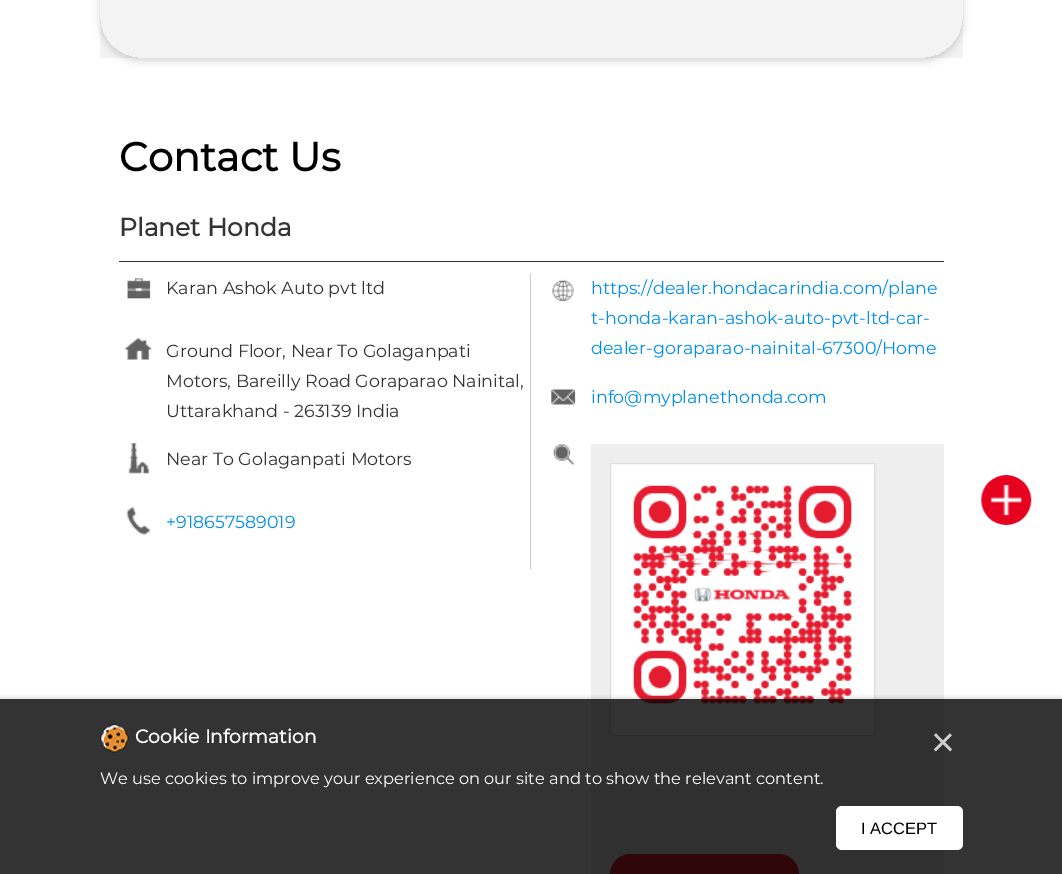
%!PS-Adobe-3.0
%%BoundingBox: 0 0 1062 874
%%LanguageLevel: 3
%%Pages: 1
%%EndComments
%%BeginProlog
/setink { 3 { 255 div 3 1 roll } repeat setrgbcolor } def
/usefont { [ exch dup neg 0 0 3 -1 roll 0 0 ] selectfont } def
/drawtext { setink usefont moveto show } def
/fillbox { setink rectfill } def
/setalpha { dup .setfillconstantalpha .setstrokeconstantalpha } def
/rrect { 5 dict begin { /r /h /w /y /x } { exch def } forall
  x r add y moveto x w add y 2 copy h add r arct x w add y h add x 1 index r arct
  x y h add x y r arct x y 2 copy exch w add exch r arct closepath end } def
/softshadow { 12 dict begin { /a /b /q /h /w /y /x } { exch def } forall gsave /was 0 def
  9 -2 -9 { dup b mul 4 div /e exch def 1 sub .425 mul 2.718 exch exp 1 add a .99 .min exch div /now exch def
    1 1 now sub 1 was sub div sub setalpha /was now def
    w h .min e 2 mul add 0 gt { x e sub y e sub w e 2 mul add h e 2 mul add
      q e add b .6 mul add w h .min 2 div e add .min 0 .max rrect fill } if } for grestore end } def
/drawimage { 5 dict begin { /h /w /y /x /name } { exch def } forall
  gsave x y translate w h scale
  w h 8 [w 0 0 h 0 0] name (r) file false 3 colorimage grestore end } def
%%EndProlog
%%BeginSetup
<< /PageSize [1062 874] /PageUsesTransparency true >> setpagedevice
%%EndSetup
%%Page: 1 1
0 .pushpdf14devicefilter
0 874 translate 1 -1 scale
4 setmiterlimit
0 0 1062 874 255 255 255 fillbox
100 0 863 58 243 243 243 fillbox
gsave
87 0 moveto 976 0 lineto 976 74 lineto 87 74 lineto closepath 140 -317 moveto 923 -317 lineto 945 -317 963 -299 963 -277 curveto 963 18 lineto 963 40 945 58 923 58 curveto 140 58 lineto 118 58 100 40 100 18 curveto 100 -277 lineto 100 -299 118 -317 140 -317 curveto closepath eoclip newpath
0 0 0 setink
100 -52 863 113 40 4 0.16 softshadow
grestore
(assets/img1.rgb) 981 475 51 50 drawimage
(Contact Us) 119 171 /Montserrat-Bold 40 0 0 0 drawtext
119 261 825 1 51 51 51 fillbox
(Planet Honda) 119 236 /Montserrat-Bold 25 51 51 51 drawtext
530 273 1 296 204 204 204 fillbox
(assets/img2.rgb) 127 278 24 21 drawimage
(Karan Ashok Auto pvt ltd) 166 294 /Montserrat-Regular 17.5 51 51 51 drawtext
(assets/img3.rgb) 124 338 28 22 drawimage
(Ground Floor, Near To Golaganpati) 166 357 /Montserrat-Regular 17.5 51 51 51 drawtext
(Motors, Bareilly Road Goraparao Nainital,) 166 387 /Montserrat-Regular 17.5 51 51 51 drawtext
(Uttarakhand - 263139 India) 166 417 /Montserrat-Regular 17.5 51 51 51 drawtext
(assets/img4.rgb) 128 443 21 31 drawimage
(Near To Golaganpati Motors) 166 465 /Montserrat-Regular 17.5 51 51 51 drawtext
(assets/img5.rgb) 126 507 25 28 drawimage
(+918657589019) 166 528 /Montserrat-Regular 17.5 2 143 232 drawtext
(assets/img6.rgb) 552 279 22 23 drawimage
(https://dealer.hondacarindia.com/plane) 591 294 /Montserrat-Regular 17.5 2 143 232 drawtext
(t-honda-karan-ashok-auto-pvt-ltd-car-) 591 324 /Montserrat-Regular 17.5 2 143 232 drawtext
(dealer-goraparao-nainital-67300/Home) 591 354 /Montserrat-Regular 17.5 2 143 232 drawtext
(assets/img7.rgb) 551 389 25 16 drawimage
(info@myplanethonda.com) 591 403 /Montserrat-Regular 17.5 2 143 232 drawtext
(assets/img8.rgb) 553 444 21 21 drawimage
591 444 353 430 238 238 238 fillbox
255 255 255 setink
610.5 463.5 moveto 874.5 463.5 lineto 874.5 735.5 lineto 610.5 735.5 lineto closepath gsave fill grestore
221 221 221 setink
stroke
(assets/img9.rgb) 633 485 219 219 drawimage
229 27 47 setink
610 854 189 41 20.5 rrect fill
gsave
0 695 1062 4 rectclip
0 0 0 setink
0 699 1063 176 0 3 0.2 softshadow
grestore
0.8 setalpha
0 699 1062 175 0 0 0 fillbox
1 setalpha
(assets/img10.rgb) 100 723 29 30 drawimage
(Cookie Information) 135 743 /Montserrat-Bold 18.75 255 255 255 drawtext
(×) 931 756 /LiberationSans-Regular 41 208 208 208 drawtext
(We use cookies to improve your experience on our site and to show the relevant content.) 100 784 /Montserrat-Regular 16.25 255 255 255 drawtext
836 806 127 44 6 rrect fill
(I ACCEPT) 861 834 /LiberationSans-Regular 16.5 0 0 0 drawtext
.poppdf14devicefilter showpage
%%EOF
